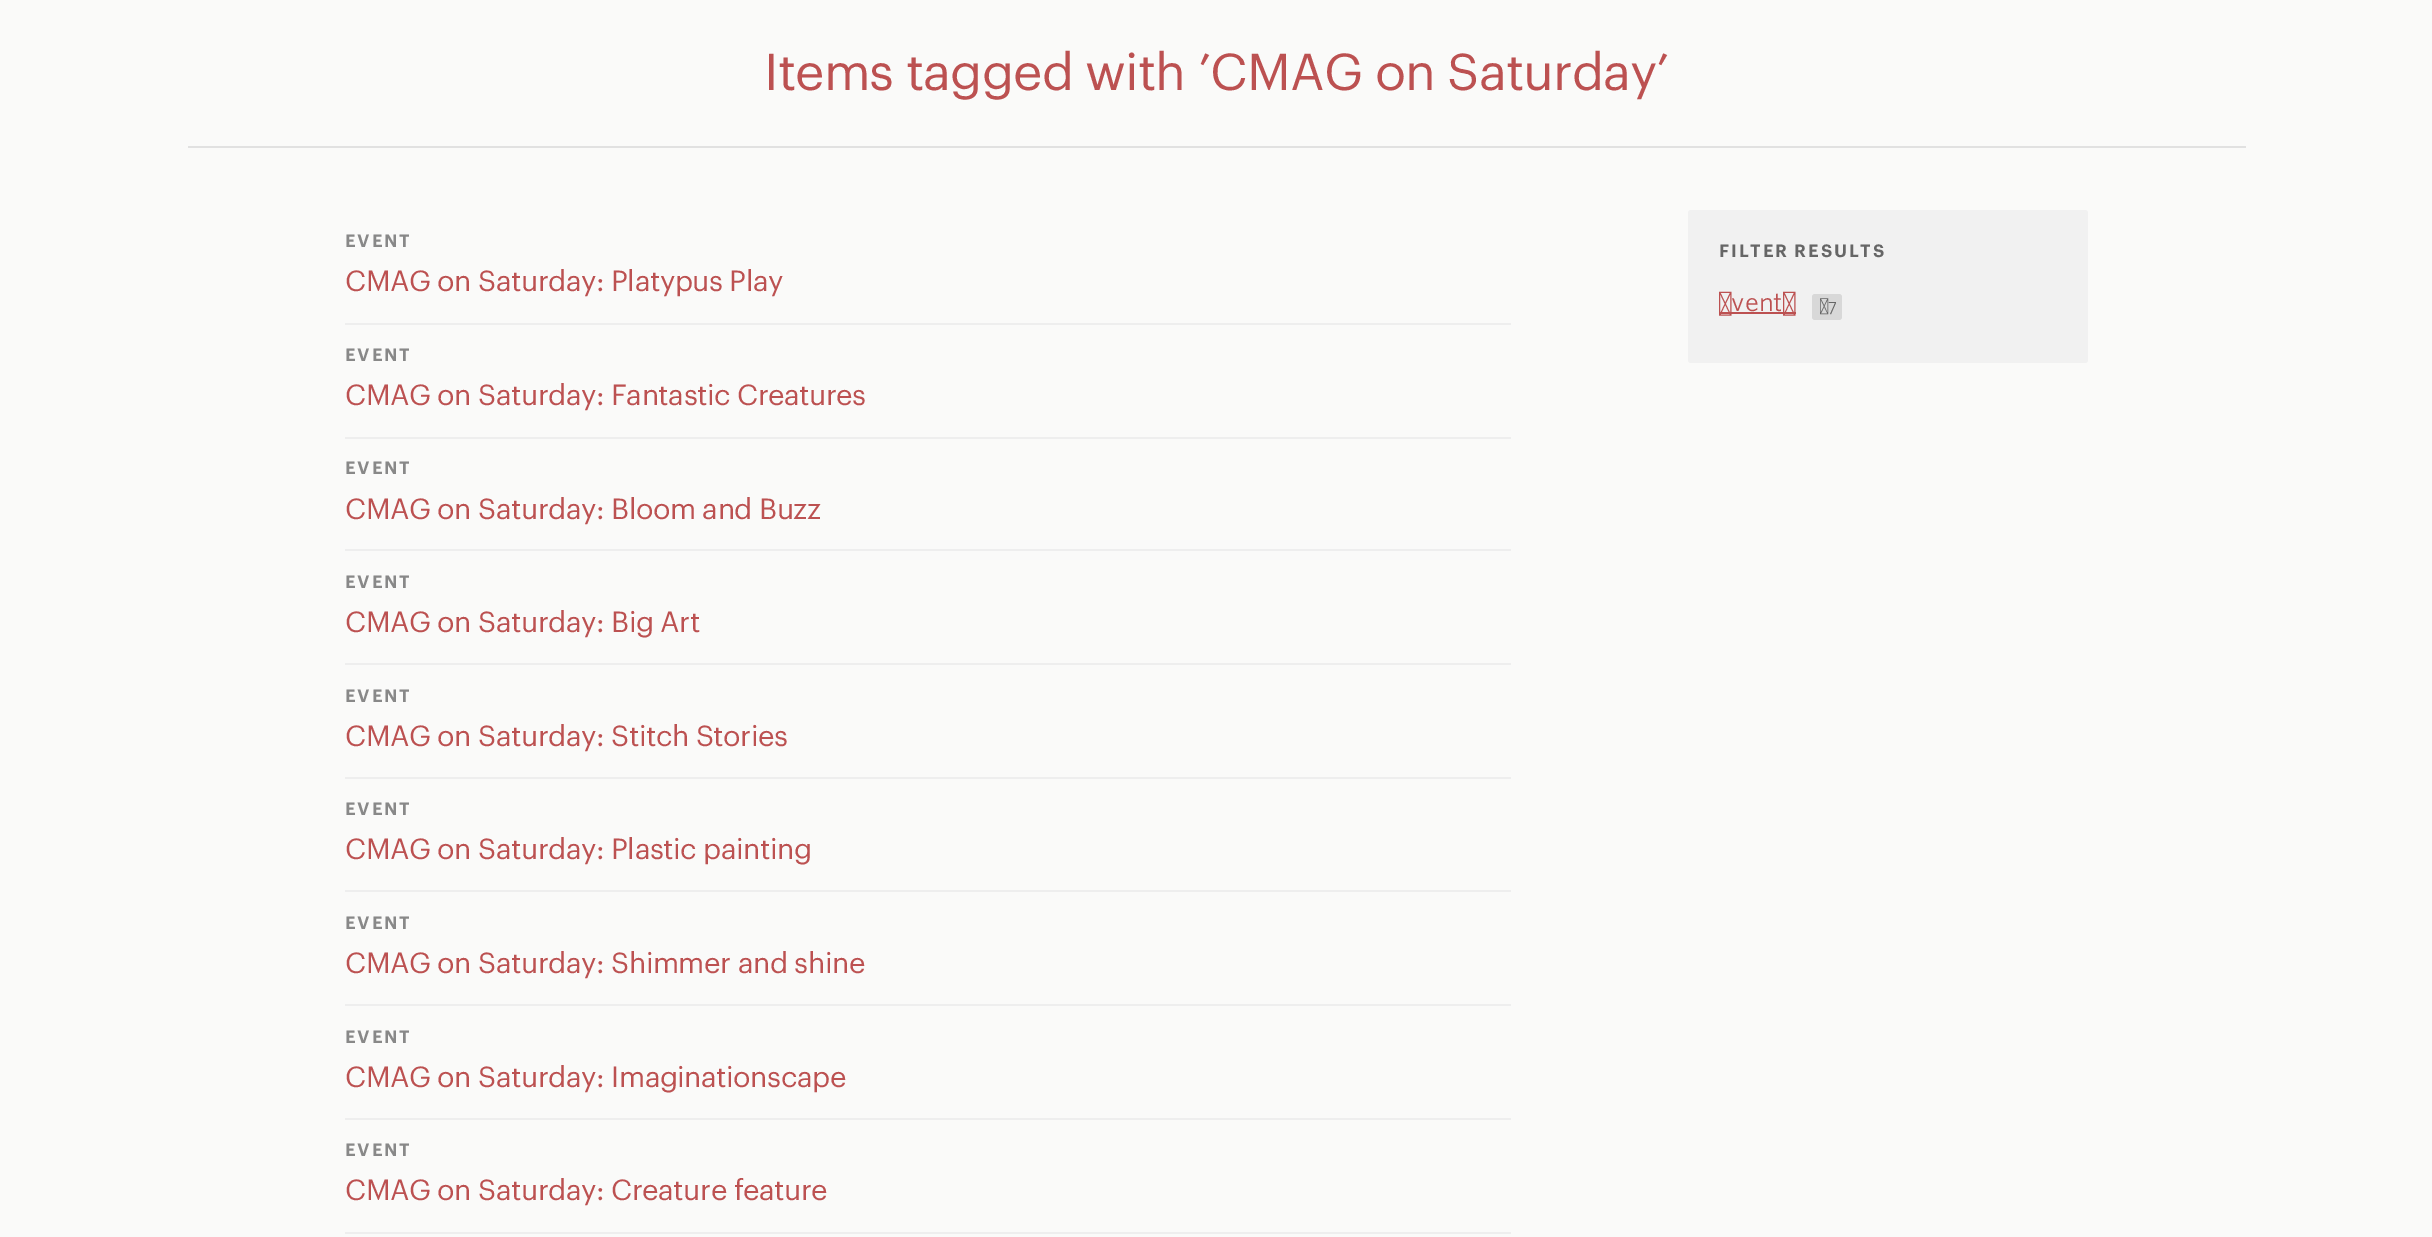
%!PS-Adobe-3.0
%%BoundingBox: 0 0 2432 1237
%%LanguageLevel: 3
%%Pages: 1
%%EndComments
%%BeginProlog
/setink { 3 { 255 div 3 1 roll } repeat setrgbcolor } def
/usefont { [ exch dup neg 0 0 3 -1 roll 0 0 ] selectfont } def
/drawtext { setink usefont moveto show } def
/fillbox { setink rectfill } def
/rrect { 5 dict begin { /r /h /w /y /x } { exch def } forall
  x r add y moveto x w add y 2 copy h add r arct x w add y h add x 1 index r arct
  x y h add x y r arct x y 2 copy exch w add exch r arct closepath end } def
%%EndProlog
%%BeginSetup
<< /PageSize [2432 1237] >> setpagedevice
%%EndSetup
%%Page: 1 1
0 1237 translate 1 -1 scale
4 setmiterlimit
0 0 2432 1237 250 250 249 fillbox
188 146 2058 2 225 225 225 fillbox
/Graphik-Regular 50.7 usefont
188 81 81 setink
764 90 moveto -1 0 (Items tagged with ’CMAG on Saturday’) ashow
345 323 1166 2 238 238 238 fillbox
/Graphik-SemiBold 17.5 usefont
136 136 136 setink
345 247 moveto 1.75 0 (EVENT) ashow
/Graphik-Regular 28.5 usefont
188 81 81 setink
345 291 moveto -0.55 0 (CMAG on Saturday: Platypus Play) ashow
345 437 1166 2 238 238 238 fillbox
/Graphik-SemiBold 17.5 usefont
136 136 136 setink
345 361 moveto 1.75 0 (EVENT) ashow
/Graphik-Regular 28.5 usefont
188 81 81 setink
345 405 moveto -0.55 0 (CMAG on Saturday: Fantastic Creatures) ashow
345 549 1166 2 238 238 238 fillbox
/Graphik-SemiBold 17.5 usefont
136 136 136 setink
345 474 moveto 1.75 0 (EVENT) ashow
/Graphik-Regular 28.5 usefont
188 81 81 setink
345 519 moveto -0.55 0 (CMAG on Saturday: Bloom and Buzz) ashow
345 663 1166 2 238 238 238 fillbox
/Graphik-SemiBold 17.5 usefont
136 136 136 setink
345 588 moveto 1.75 0 (EVENT) ashow
/Graphik-Regular 28.5 usefont
188 81 81 setink
345 632 moveto -0.55 0 (CMAG on Saturday: Big Art) ashow
345 777 1166 2 238 238 238 fillbox
/Graphik-SemiBold 17.5 usefont
136 136 136 setink
345 702 moveto 1.75 0 (EVENT) ashow
/Graphik-Regular 28.5 usefont
188 81 81 setink
345 746 moveto -0.55 0 (CMAG on Saturday: Stitch Stories) ashow
345 890 1166 2 238 238 238 fillbox
/Graphik-SemiBold 17.5 usefont
136 136 136 setink
345 815 moveto 1.75 0 (EVENT) ashow
/Graphik-Regular 28.5 usefont
188 81 81 setink
345 859 moveto -0.55 0 (CMAG on Saturday: Plastic painting) ashow
345 1004 1166 2 238 238 238 fillbox
/Graphik-SemiBold 17.5 usefont
136 136 136 setink
345 929 moveto 1.75 0 (EVENT) ashow
/Graphik-Regular 28.5 usefont
188 81 81 setink
345 973 moveto -0.55 0 (CMAG on Saturday: Shimmer and shine) ashow
345 1118 1166 2 238 238 238 fillbox
/Graphik-SemiBold 17.5 usefont
136 136 136 setink
345 1043 moveto 1.75 0 (EVENT) ashow
/Graphik-Regular 28.5 usefont
188 81 81 setink
345 1087 moveto -0.55 0 (CMAG on Saturday: Imaginationscape) ashow
345 1232 1166 2 238 238 238 fillbox
/Graphik-SemiBold 17.5 usefont
136 136 136 setink
345 1156 moveto 1.75 0 (EVENT) ashow
/Graphik-Regular 28.5 usefont
188 81 81 setink
345 1200 moveto -0.55 0 (CMAG on Saturday: Creature feature) ashow
241 241 241 setink
1688 210 400 153 3 rrect fill
/Graphik-SemiBold 17.5 usefont
102 102 102 setink
1719 257 moveto 1.75 0 (FILTER RESULTS) ashow
1719 312 77 2 188 81 81 fillbox
(Events) 1719 311 /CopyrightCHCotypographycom-Light 24 188 81 81 drawtext
216 216 216 setink
1812 294 30 26 3 rrect fill
(17) 1820 311 /CopyrightCHCotypographycom-Light 16 102 102 102 drawtext
showpage
%%EOF
